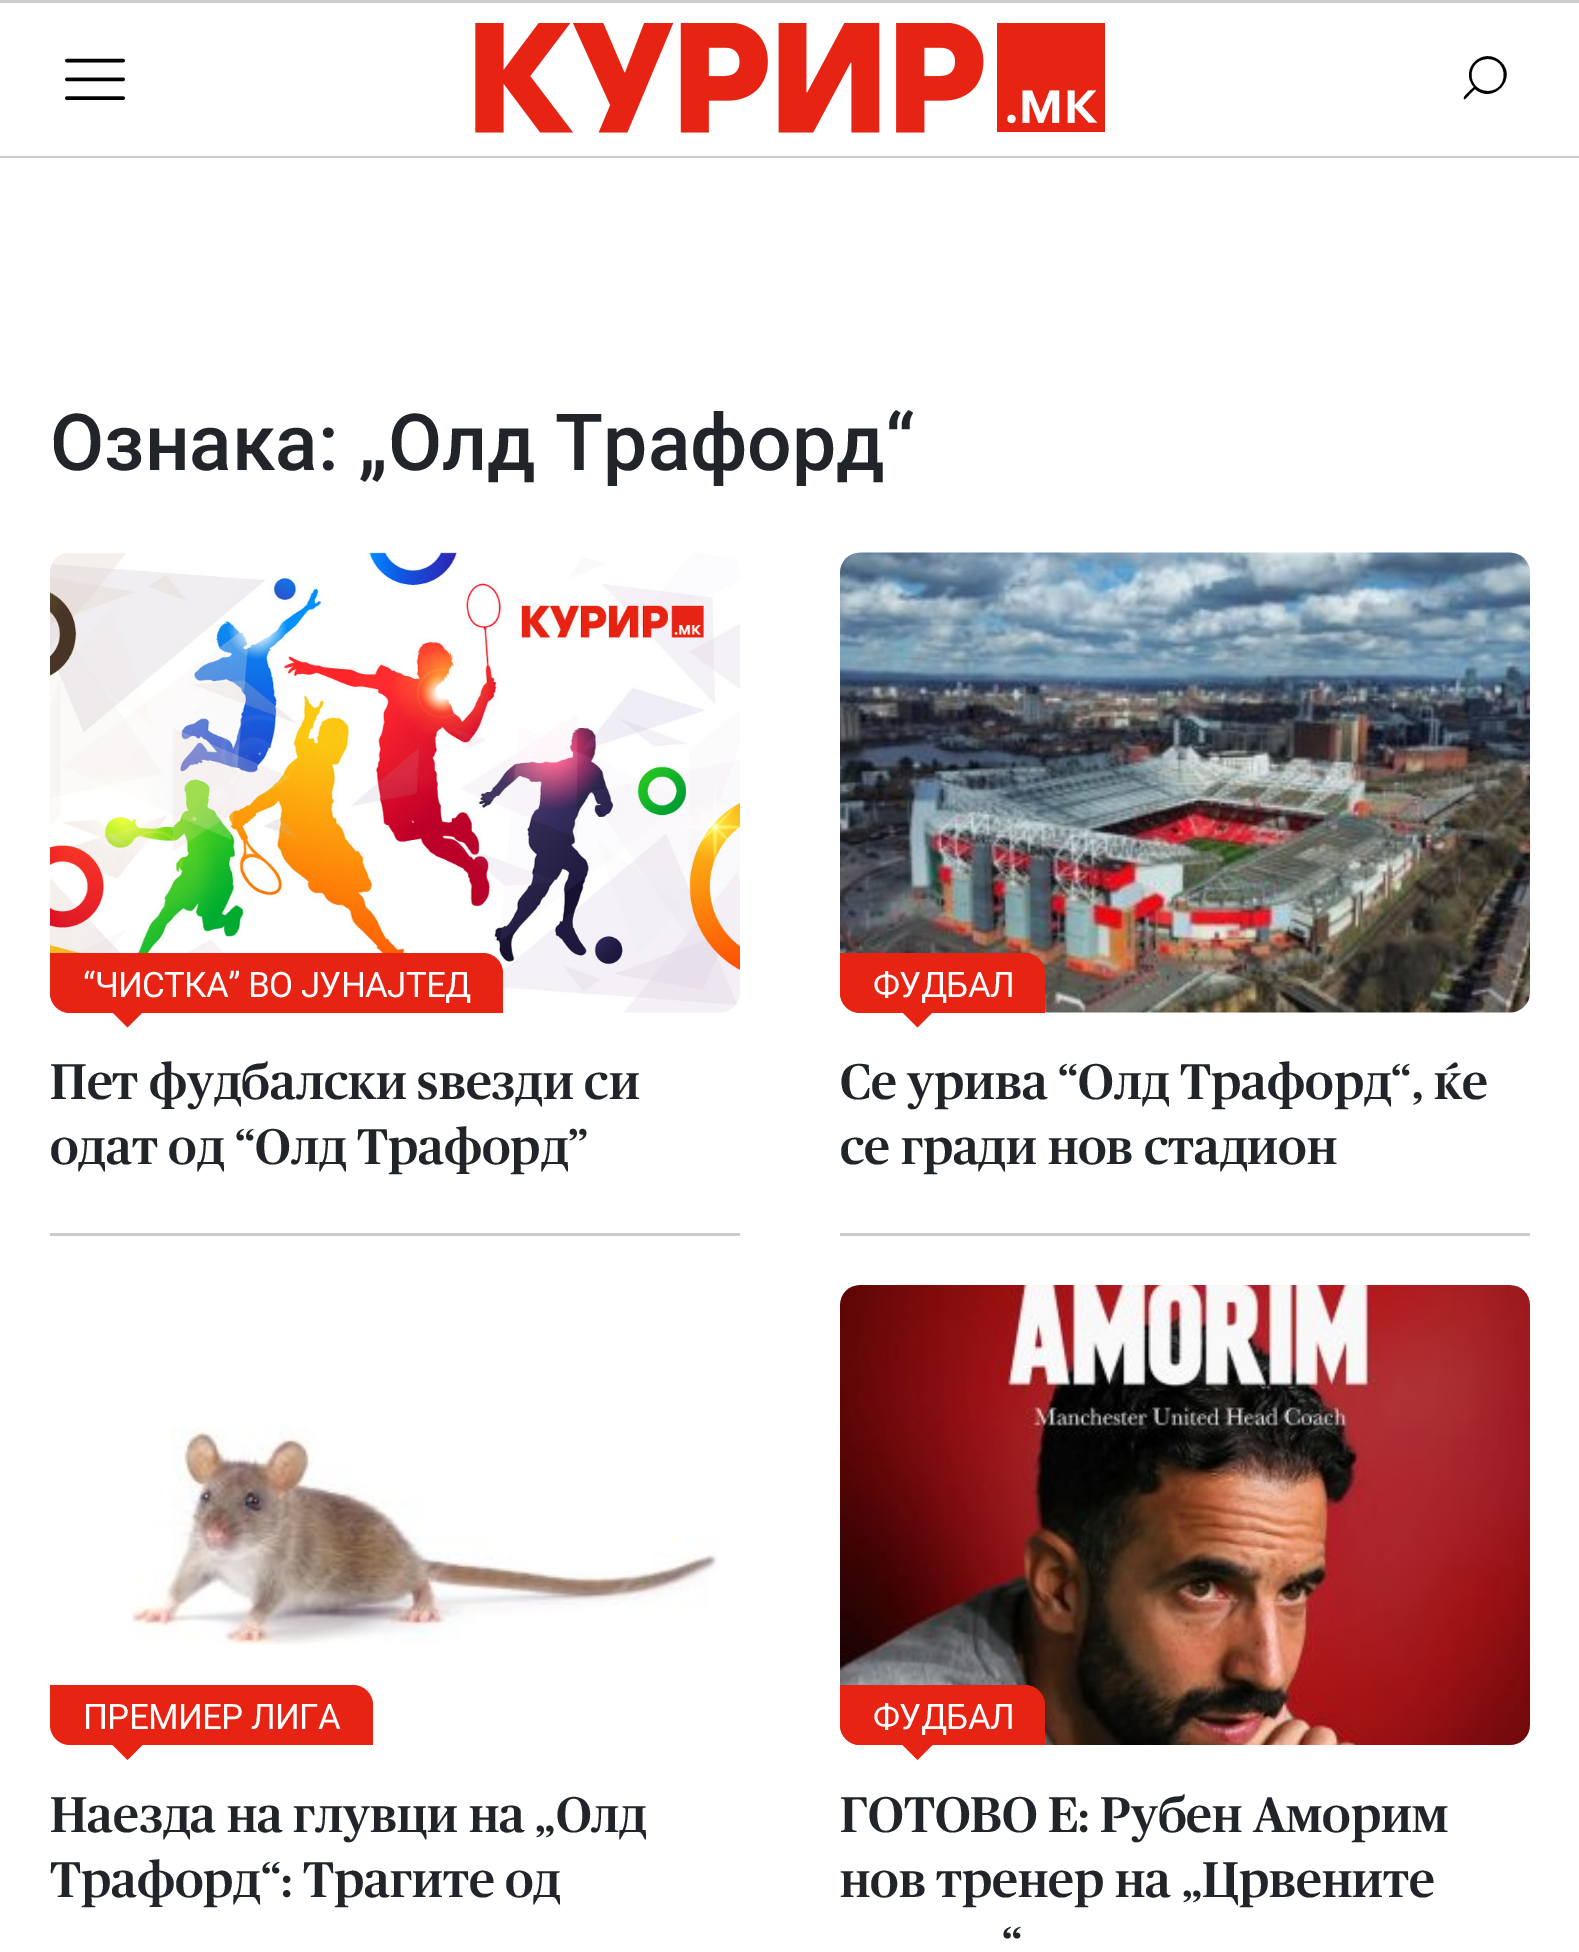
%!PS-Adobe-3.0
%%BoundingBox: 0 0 1579 1952
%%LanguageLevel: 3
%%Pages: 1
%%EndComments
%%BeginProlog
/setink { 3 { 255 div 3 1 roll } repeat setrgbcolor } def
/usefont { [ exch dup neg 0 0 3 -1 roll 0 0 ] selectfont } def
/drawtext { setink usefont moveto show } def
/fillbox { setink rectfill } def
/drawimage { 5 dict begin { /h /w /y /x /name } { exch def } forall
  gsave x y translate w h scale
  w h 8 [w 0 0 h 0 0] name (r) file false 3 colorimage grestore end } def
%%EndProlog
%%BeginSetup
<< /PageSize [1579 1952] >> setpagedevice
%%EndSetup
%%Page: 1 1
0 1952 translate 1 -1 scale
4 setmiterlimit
0 0 1579 1952 255 255 255 fillbox
0 0 1579 3 204 204 204 fillbox
(assets/img1.rgb) 65 58 60 42 drawimage
(assets/img2.rgb) 475 23 630 110 drawimage
0 0 0 setink
1464 99 moveto 1465 100 1468 96 1469 95 curveto 1475 89 lineto 1493 105 1518 78 1501 62 curveto 1484 45 1458 69 1474 87 curveto 1472 89 1462 97 1464 99 curveto closepath 1488 91 moveto 1466 91 1466 59 1488 59 curveto 1509 59 1509 91 1488 91 curveto closepath fill
0 156 1579 2 204 204 204 fillbox
(Ознака: „Олд Трафорд“) 50 470 /Roboto-Medium 78.75 33 37 41 drawtext
50 1233 690 3 204 204 204 fillbox
(assets/img3.rgb) 50 552 690 461 drawimage
231 36 19 setink
50 953 moveto 483 953 lineto 494 953 503 962 503 973 curveto 503 1013 lineto 70 1013 lineto 59 1013 50 1004 50 993 curveto closepath fill
/Roboto-Regular 35 usefont
255 255 255 setink
83 997 moveto -0.7 0 (“ЧИСТКА” ВО ЈУНАЈТЕД) ashow
231 36 19 setink
110 1010 moveto 145 1010 lineto 127.5 1027.5 lineto closepath fill
(Пет фудбалски ѕвезди си) 50 1099 /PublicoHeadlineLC-Medium 50 33 37 41 drawtext
(одат од “Олд Трафорд”) 50 1164 /PublicoHeadlineLC-Medium 50 33 37 41 drawtext
840 1233 690 3 204 204 204 fillbox
(assets/img4.rgb) 839 552 691 461 drawimage
231 36 19 setink
840 953 moveto 1025 953 lineto 1036 953 1045 962 1045 973 curveto 1045 1013 lineto 860 1013 lineto 849 1013 840 1004 840 993 curveto closepath fill
/Roboto-Regular 35 usefont
255 255 255 setink
873 997 moveto -0.7 0 (ФУДБАЛ) ashow
231 36 19 setink
900 1010 moveto 935 1010 lineto 917.5 1027.5 lineto closepath fill
(Се урива “Олд Трафорд“, ќе) 840 1099 /PublicoHeadlineLC-Medium 50 33 37 41 drawtext
(се гради нов стадион) 840 1164 /PublicoHeadlineLC-Medium 50 33 37 41 drawtext
(assets/img5.rgb) 131 1427 587 218 drawimage
231 36 19 setink
50 1685 moveto 353 1685 lineto 364 1685 373 1694 373 1705 curveto 373 1745 lineto 70 1745 lineto 59 1745 50 1736 50 1725 curveto closepath fill
/Roboto-Regular 35 usefont
255 255 255 setink
83 1729 moveto -0.7 0 (ПРЕМИЕР ЛИГА) ashow
231 36 19 setink
110 1742.5 moveto 145 1742.5 lineto 127.5 1760 lineto closepath fill
(Наезда на глувци на „Олд) 50 1832 /PublicoHeadlineLC-Medium 50 33 37 41 drawtext
(Трафорд“: Трагите од) 50 1897 /PublicoHeadlineLC-Medium 50 33 37 41 drawtext
(assets/img6.rgb) 840 1285 690 460 drawimage
231 36 19 setink
840 1685 moveto 1025 1685 lineto 1036 1685 1045 1694 1045 1705 curveto 1045 1745 lineto 860 1745 lineto 849 1745 840 1736 840 1725 curveto closepath fill
/Roboto-Regular 35 usefont
255 255 255 setink
873 1729 moveto -0.7 0 (ФУДБАЛ) ashow
231 36 19 setink
900 1742.5 moveto 935 1742.5 lineto 917.5 1760 lineto closepath fill
(ГОТОВО Е: Рубен Аморим) 840 1832 /PublicoHeadlineLC-Medium 50 33 37 41 drawtext
(нов тренер на „Црвените) 840 1897 /PublicoHeadlineLC-Medium 50 33 37 41 drawtext
(“) 1002 1962 /PublicoHeadlineLC-Medium 50 33 37 41 drawtext
showpage
%%EOF
